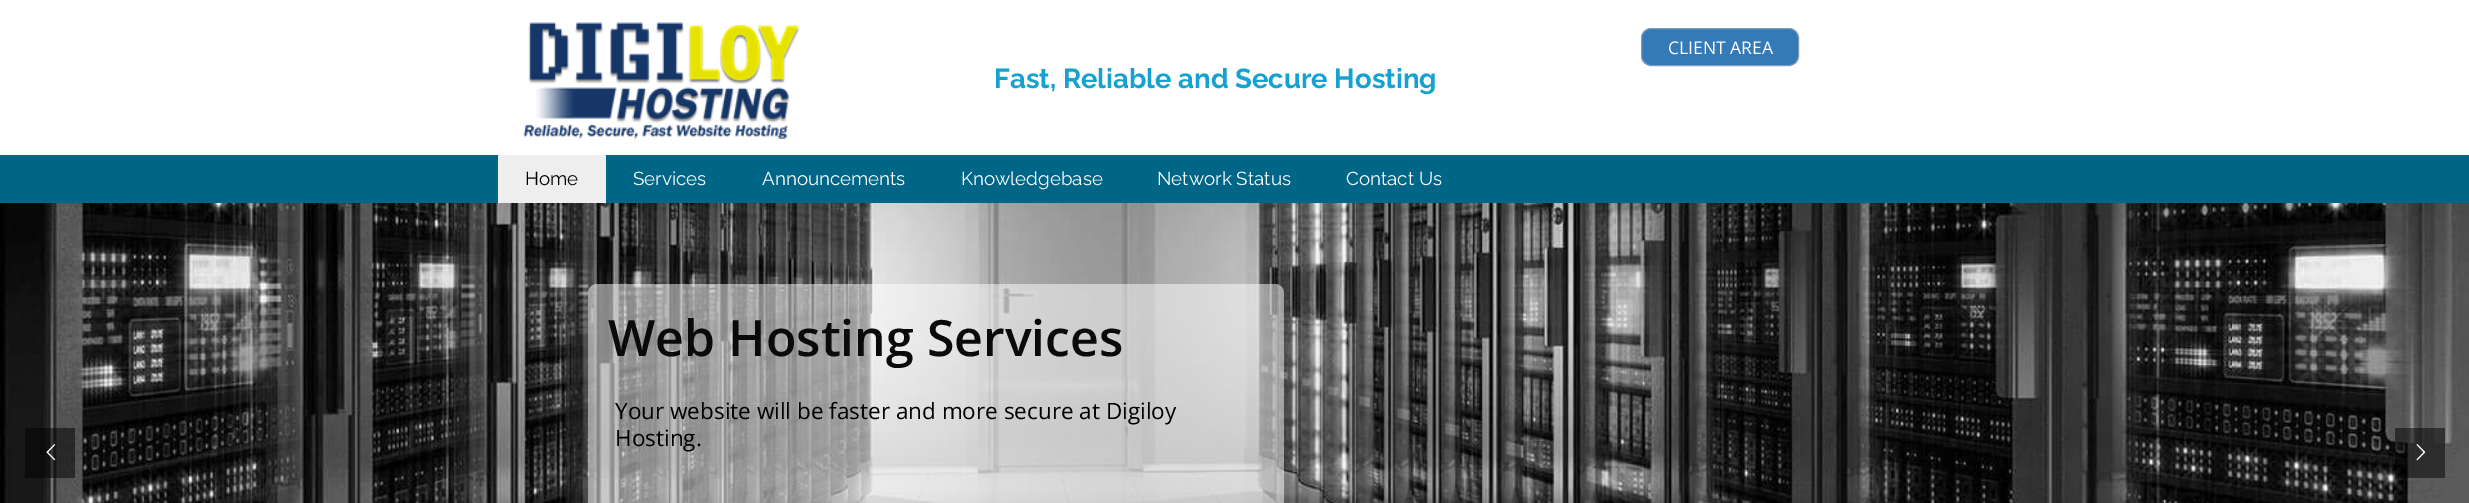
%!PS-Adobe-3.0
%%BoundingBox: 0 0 2469 503
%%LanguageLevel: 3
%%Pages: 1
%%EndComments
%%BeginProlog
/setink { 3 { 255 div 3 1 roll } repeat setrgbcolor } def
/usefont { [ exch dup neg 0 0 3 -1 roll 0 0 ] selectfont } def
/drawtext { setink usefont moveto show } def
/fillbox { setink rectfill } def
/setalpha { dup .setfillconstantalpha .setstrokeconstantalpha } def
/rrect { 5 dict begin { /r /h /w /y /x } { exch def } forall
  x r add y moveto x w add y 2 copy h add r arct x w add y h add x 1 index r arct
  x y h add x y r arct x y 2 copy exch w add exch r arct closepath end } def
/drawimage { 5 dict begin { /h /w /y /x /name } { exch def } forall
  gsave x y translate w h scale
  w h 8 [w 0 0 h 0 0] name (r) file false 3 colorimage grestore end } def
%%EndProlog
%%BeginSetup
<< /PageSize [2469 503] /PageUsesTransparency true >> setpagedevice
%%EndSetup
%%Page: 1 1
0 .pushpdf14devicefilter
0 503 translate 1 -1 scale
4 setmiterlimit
0 0 2469 503 255 255 255 fillbox
(assets/img1.rgb) 523 22 277 117 drawimage
51 122 183 setink
1641.5 28.5 157 37 9.5 rrect gsave fill grestore
129 157 187 setink
stroke
(CLIENT AREA) 1668 54 /OpenSans-Regular 17.5 255 255 255 drawtext
(Fast, Reliable and Secure Hosting) 994 88 /Raleway-Bold 27.5 21 162 209 drawtext
0 155 2469 48 0 102 135 fillbox
498 155 108 48 238 238 238 fillbox
(Home) 525 185 /Raleway-Regular 18.75 0 0 0 drawtext
(Services) 633 185 /Raleway-Regular 18.75 255 255 255 drawtext
(Announcements) 762 185 /Raleway-Regular 18.75 255 255 255 drawtext
(Knowledgebase) 961 185 /Raleway-Regular 18.75 255 255 255 drawtext
(Network Status) 1157 185 /Raleway-Regular 18.75 255 255 255 drawtext
(Contact Us) 1346 185 /Raleway-Regular 18.75 255 255 255 drawtext
(assets/img3.rgb) 0 203 2469 300 drawimage
0.5 setalpha
25 428 50 50 0 0 0 fillbox
1 setalpha
(assets/img2.rgb) 46 444 10 17 drawimage
0.5 setalpha
255 255 255 setink
588 284 696 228 9 rrect fill
1 setalpha
(Web Hosting Services) 608 356 /OpenSans-SemiBold 50 10 10 10 drawtext
(Your website will be faster and more secure at Digiloy) 615 419 /OpenSans-Regular 22.5 0 0 0 drawtext
(Hosting.) 615 446 /OpenSans-Regular 22.5 0 0 0 drawtext
0.5 setalpha
2395 428 50 50 0 0 0 fillbox
1 setalpha
(assets/img4.rgb) 2416 444 10 17 drawimage
.poppdf14devicefilter showpage
%%EOF
